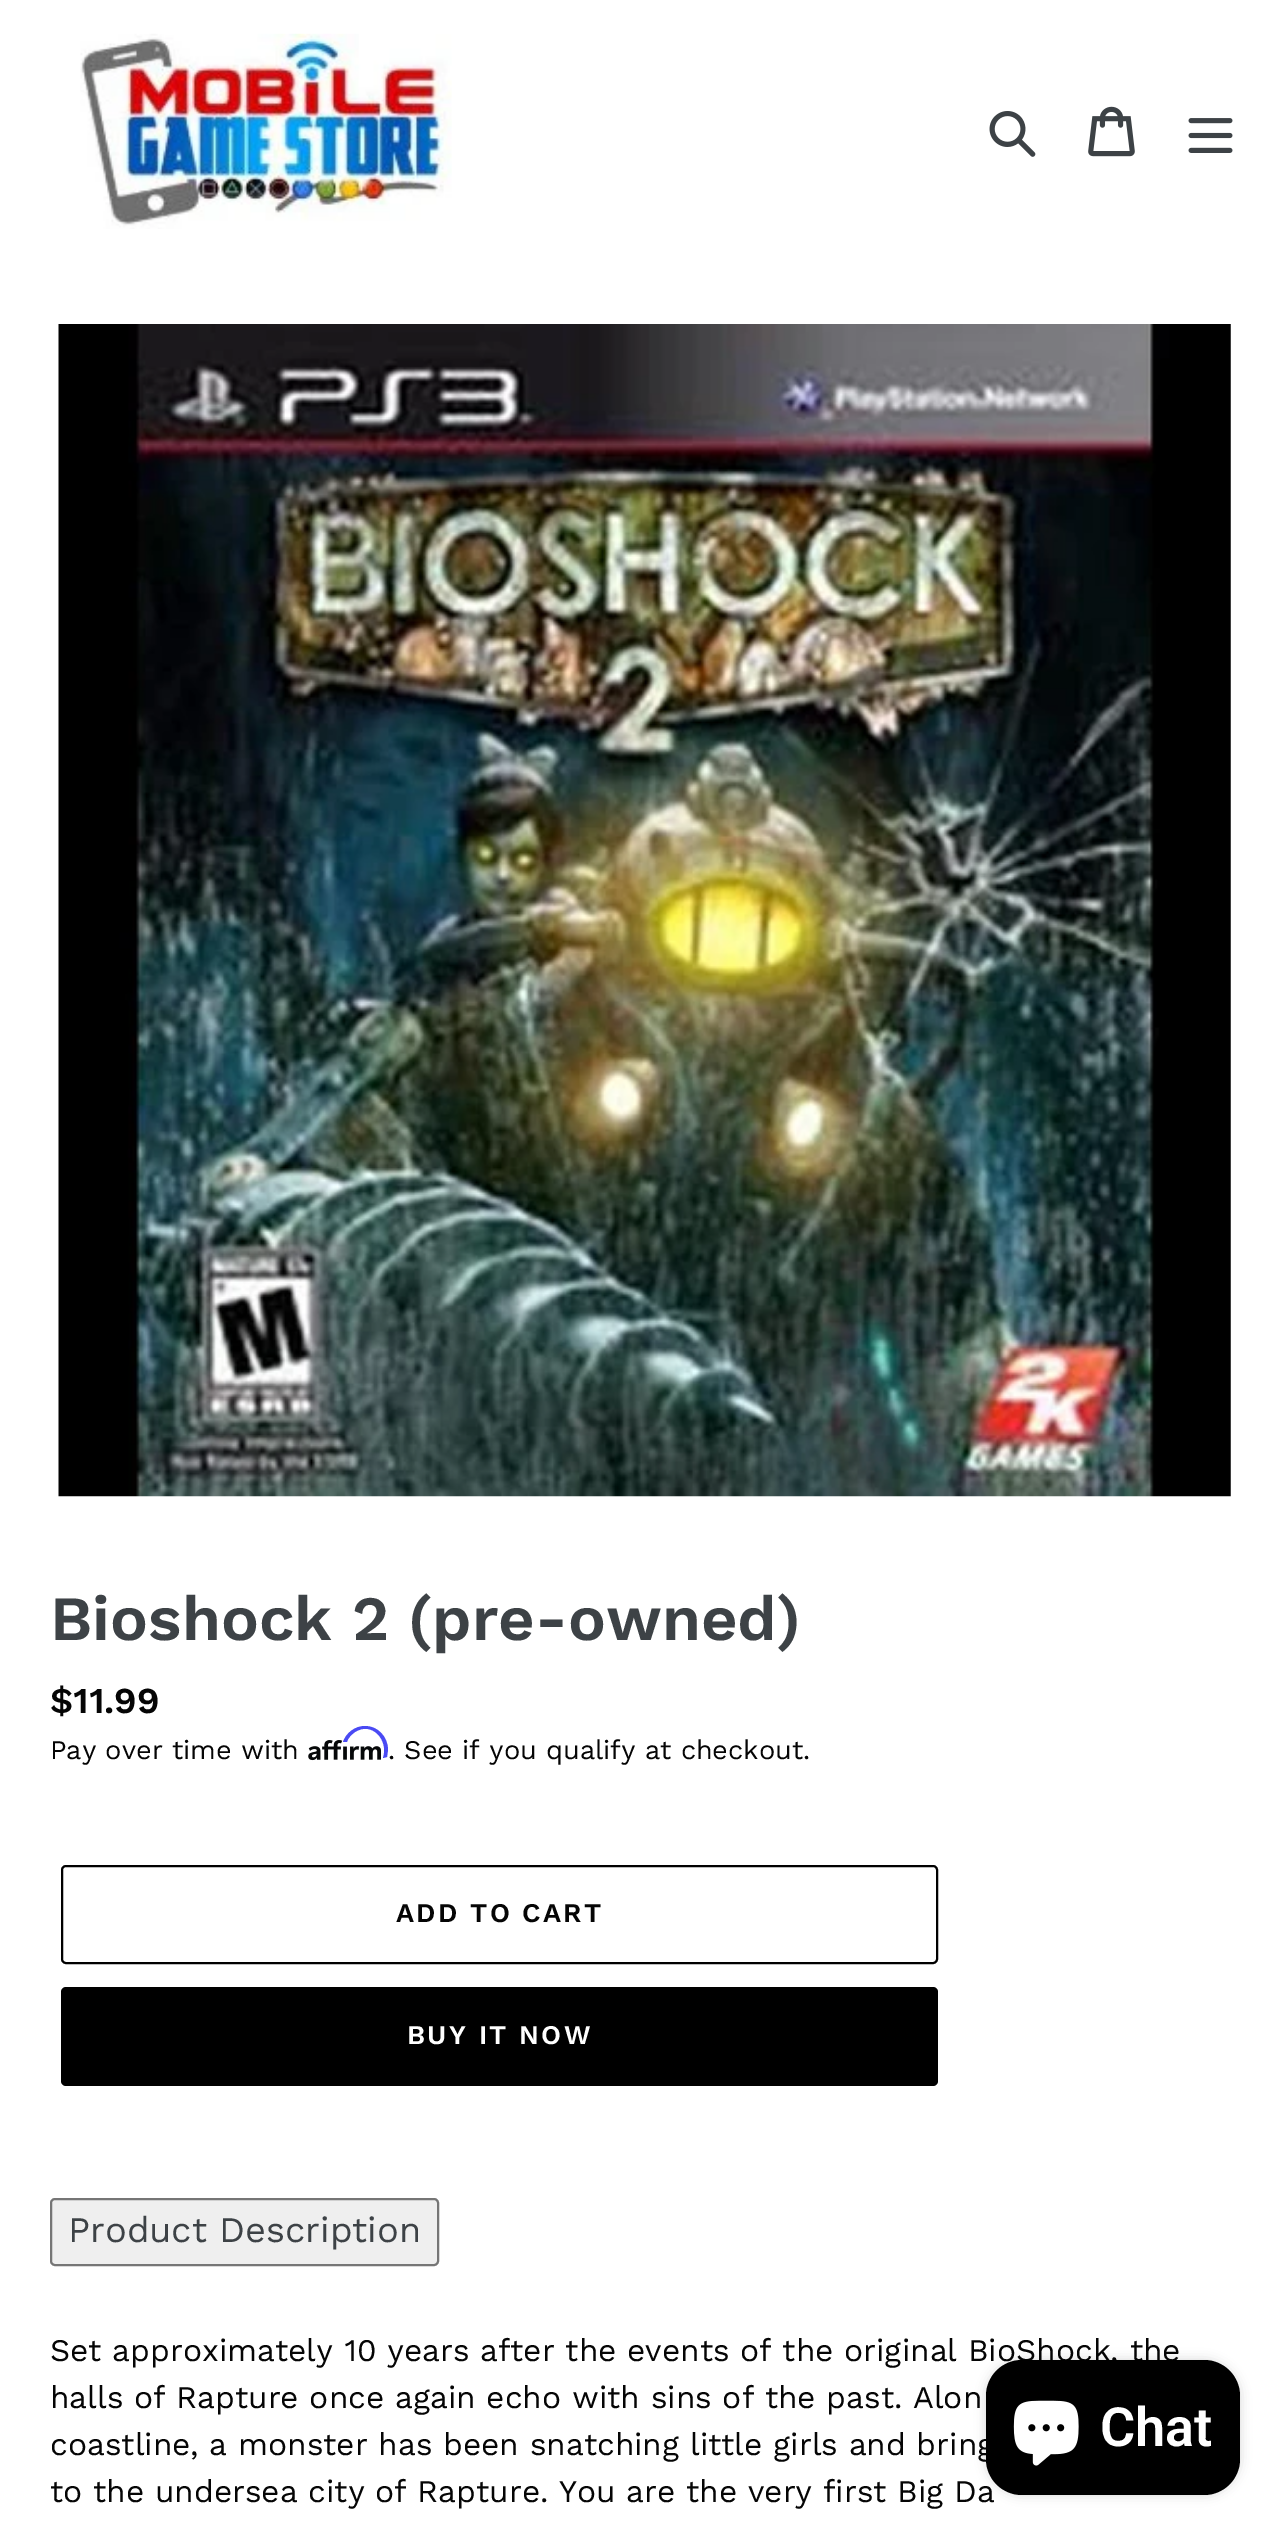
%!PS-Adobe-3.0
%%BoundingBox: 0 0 1288 2541
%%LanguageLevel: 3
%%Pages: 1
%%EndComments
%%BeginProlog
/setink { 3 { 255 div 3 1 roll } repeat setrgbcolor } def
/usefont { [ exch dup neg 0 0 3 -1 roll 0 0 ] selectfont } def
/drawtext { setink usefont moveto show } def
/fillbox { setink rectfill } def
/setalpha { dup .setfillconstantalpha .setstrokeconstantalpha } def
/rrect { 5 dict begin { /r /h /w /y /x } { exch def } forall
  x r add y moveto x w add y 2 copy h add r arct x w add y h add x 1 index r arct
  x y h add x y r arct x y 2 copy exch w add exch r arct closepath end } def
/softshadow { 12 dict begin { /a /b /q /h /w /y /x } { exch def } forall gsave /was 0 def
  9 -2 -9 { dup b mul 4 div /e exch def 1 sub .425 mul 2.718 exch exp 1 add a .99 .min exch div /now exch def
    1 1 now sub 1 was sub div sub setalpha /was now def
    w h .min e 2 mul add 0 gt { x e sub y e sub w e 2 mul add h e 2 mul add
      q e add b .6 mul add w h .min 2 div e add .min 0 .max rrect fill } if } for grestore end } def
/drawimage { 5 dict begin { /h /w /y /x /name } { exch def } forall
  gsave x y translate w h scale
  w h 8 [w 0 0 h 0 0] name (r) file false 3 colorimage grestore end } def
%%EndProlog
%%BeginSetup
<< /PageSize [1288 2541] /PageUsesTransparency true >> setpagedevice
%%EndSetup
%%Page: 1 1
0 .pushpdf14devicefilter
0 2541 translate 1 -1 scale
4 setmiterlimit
0 0 1288 2541 255 255 255 fillbox
(assets/img1.rgb) 80 33 372 196 drawimage
(assets/img2.rgb) 989 111 47 46 drawimage
(assets/img3.rgb) 1088 106 47 51 drawimage
(assets/img4.rgb) 1188 118 45 35 drawimage
(assets/img5.rgb) 58 324 1173 1173 drawimage
(Bioshock 2 \(pre-owned\)) 50 1640 /WorkSans-SemiBold 63 61 66 70 drawtext
($11.99) 50 1713 /WorkSans-SemiBold 36.5 5 5 5 drawtext
(Pay over time with) 50 1759 /WorkSans-Regular 27 5 5 5 drawtext
(assets/img6.rgb) 308 1740 73 21 drawimage
74 74 244 setink
365 1726 moveto 355 1726 346 1733 343 1742 curveto 347 1742 lineto 348 1738 351 1735 355 1732 curveto 372 1721 389 1740 383 1758 curveto 387 1757 lineto 388 1750 lineto 388 1737 378 1726 365 1726 curveto closepath fill
(. See if you qualify at checkout.) 388 1759 /WorkSans-Regular 27 5 5 5 drawtext
0 0 0 setink
2 setlinewidth
62 1866 875 97 4 rrect stroke
/WorkSans-SemiBold 27 usefont
5 5 5 setink
396 1922 moveto 2.25 0 (ADD TO CART) ashow
0 0 0 setink
61 1987 877 99 5 rrect fill
255 255 255 setink
407 2044 moveto 2.25 0 (BUY IT NOW) ashow
239 239 239 setink
51 2199 387 66 4 rrect gsave fill grestore
118 118 118 setink
stroke
(Product Description) 68 2242 /WorkSans-Regular 36 61 66 70 drawtext
(Set approximately 10 years after the events of the original BioShock, the) 50 2361 /WorkSans-Regular 31.5 5 5 5 drawtext
(halls of Rapture once again echo with sins of the past. Alon) 50 2408 /WorkSans-Regular 31.5 5 5 5 drawtext
(coastline, a monster has been snatching little girls and bring) 50 2455 /WorkSans-Regular 31.5 5 5 5 drawtext
(to the undersea city of Rapture. You are the very first Big Da) 50 2502 /WorkSans-Regular 31.5 5 5 5 drawtext
0 0 0 setink
986 2360 254 135 36 5.5 0.15 softshadow
986 2360 254 135 36 rrect fill
(assets/img7.rgb) 1013 2400 66 66 drawimage
(Chat) 1100 2446 /Roboto-SemiBold 54 255 255 255 drawtext
.poppdf14devicefilter showpage
%%EOF
